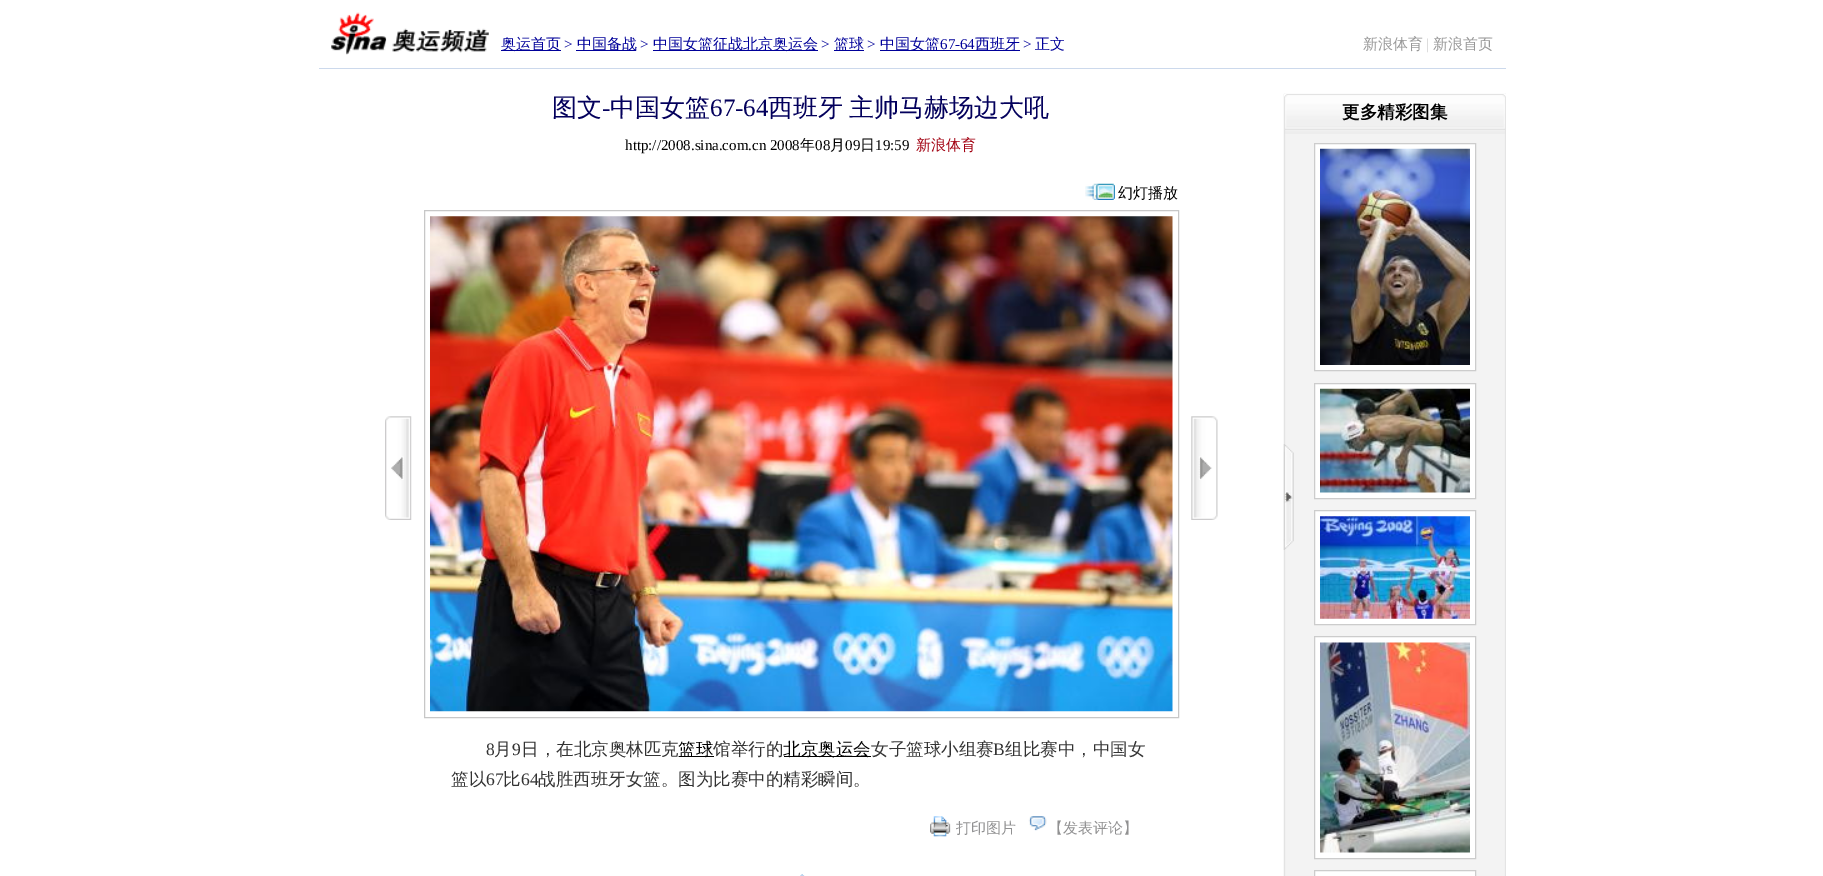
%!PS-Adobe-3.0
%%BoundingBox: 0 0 1823 876
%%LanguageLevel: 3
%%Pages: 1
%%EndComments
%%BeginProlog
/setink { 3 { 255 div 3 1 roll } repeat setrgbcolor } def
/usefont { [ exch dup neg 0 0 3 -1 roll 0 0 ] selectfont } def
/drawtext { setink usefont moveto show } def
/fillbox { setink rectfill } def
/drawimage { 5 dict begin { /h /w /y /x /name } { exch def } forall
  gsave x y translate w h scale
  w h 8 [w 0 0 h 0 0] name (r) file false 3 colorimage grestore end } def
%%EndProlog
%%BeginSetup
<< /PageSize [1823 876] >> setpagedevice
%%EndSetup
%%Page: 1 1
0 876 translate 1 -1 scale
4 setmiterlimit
0 0 1823 876 255 255 255 fillbox
319 68 1187 1 204 217 236 fillbox
(assets/img1.rgb) 331 12 56 43 drawimage
(assets/img2.rgb) 386 28 103 25 drawimage
501 50 60 1 0 0 153 fillbox
(奥运首页) 501 49 /WenQuanYiZenHei-Medium 15 0 0 153 drawtext
(>) 564 49 /LiberationSerif-Regular 15 0 0 153 drawtext
576 50 60 1 0 0 153 fillbox
(中国备战) 577 49 /WenQuanYiZenHei-Medium 15 0 0 153 drawtext
(>) 640 49 /LiberationSerif-Regular 15 0 0 153 drawtext
653 50 165 1 0 0 153 fillbox
(中国女篮征战北京奥运会) 653 49 /WenQuanYiZenHei-Medium 15 0 0 153 drawtext
(>) 821 49 /LiberationSerif-Regular 15 0 0 153 drawtext
834 50 30 1 0 0 153 fillbox
(篮球) 834 49 /WenQuanYiZenHei-Medium 15 0 0 153 drawtext
(>) 867 49 /LiberationSerif-Regular 15 0 0 153 drawtext
880 50 140 1 0 0 153 fillbox
(中国女篮) 880 49 /WenQuanYiZenHei-Medium 15 0 0 153 drawtext
(67-64) 940 49 /LiberationSerif-Regular 15 0 0 153 drawtext
(西班牙) 975 49 /WenQuanYiZenHei-Medium 15 0 0 153 drawtext
(>) 1023 49 /LiberationSerif-Regular 15 0 0 153 drawtext
(正文) 1035 49 /WenQuanYiZenHei-Medium 15 0 0 153 drawtext
(新浪体育) 1363 49 /WenQuanYiZenHei-Medium 15 152 152 152 drawtext
(|) 1426 49 /LiberationSerif-Regular 15 209 209 209 drawtext
(新浪首页) 1433 49 /WenQuanYiZenHei-Medium 15 152 152 152 drawtext
(图文) 552 116 /WenQuanYiZenHei-Medium 25 3 0 92 drawtext
(-) 602 116 /LiberationSerif-Regular 25 3 0 92 drawtext
(中国女篮) 610 116 /WenQuanYiZenHei-Medium 25 3 0 92 drawtext
(67-64) 710 116 /LiberationSerif-Regular 25 3 0 92 drawtext
/WenQuanYiZenHei-Medium 25 usefont
768 116 moveto -1 0 32 (西班牙 主帅马赫场边大吼) widthshow
(http://2008.sina.com.cn 2008) 625 150 /LiberationSerif-Regular 15 0 0 0 drawtext
(年) 800 150 /WenQuanYiZenHei-Medium 15 0 0 0 drawtext
(08) 815 150 /LiberationSerif-Regular 15 0 0 0 drawtext
(月) 830 150 /WenQuanYiZenHei-Medium 15 0 0 0 drawtext
(09) 845 150 /LiberationSerif-Regular 15 0 0 0 drawtext
(日) 860 150 /WenQuanYiZenHei-Medium 15 0 0 0 drawtext
(19:59) 875 150 /LiberationSerif-Regular 15 0 0 0 drawtext
(新浪体育) 916 150 /WenQuanYiZenHei-Medium 15 162 0 16 drawtext
(assets/img3.rgb) 1085 183 30 17 drawimage
(幻灯播放) 1118 198 /WenQuanYiZenHei-Medium 15 0 0 0 drawtext
(assets/img4.rgb) 385 416 27 104 drawimage
199 199 199 setink
424.5 210.5 754 507 rectstroke
(assets/img5.rgb) 430 216 743 496 drawimage
(assets/img6.rgb) 1191 416 27 104 drawimage
(8) 486 755 /LiberationSerif-Regular 17.5 51 51 51 drawtext
(月) 494 755 /WenQuanYiZenHei-Medium 17.5 51 51 51 drawtext
(9) 512 755 /LiberationSerif-Regular 17.5 51 51 51 drawtext
(日，在北京奥林匹克) 521 755 /WenQuanYiZenHei-Medium 17.5 51 51 51 drawtext
679 756 35 1 0 0 0 fillbox
(篮球) 678 755 /WenQuanYiZenHei-Medium 17.5 0 0 0 drawtext
(馆举行的) 713 755 /WenQuanYiZenHei-Medium 17.5 51 51 51 drawtext
784 756 87 1 0 0 0 fillbox
(北京奥运会) 783 755 /WenQuanYiZenHei-Medium 17.5 0 0 0 drawtext
(女子篮球小组赛) 871 755 /WenQuanYiZenHei-Medium 17.5 51 51 51 drawtext
(B) 993 755 /LiberationSerif-Regular 17.5 51 51 51 drawtext
(组比赛中，中国女) 1005 755 /WenQuanYiZenHei-Medium 17.5 51 51 51 drawtext
(篮以) 451 785 /WenQuanYiZenHei-Medium 17.5 51 51 51 drawtext
(67) 486 785 /LiberationSerif-Regular 17.5 51 51 51 drawtext
(比) 503 785 /WenQuanYiZenHei-Medium 17.5 51 51 51 drawtext
(64) 521 785 /LiberationSerif-Regular 17.5 51 51 51 drawtext
(战胜西班牙女篮。图为比赛中的精彩瞬间。) 538 785 /WenQuanYiZenHei-Medium 17.5 51 51 51 drawtext
(assets/img7.rgb) 930 816 21 21 drawimage
(打印图片) 956 833 /WenQuanYiZenHei-Medium 15 145 145 146 drawtext
(assets/img8.rgb) 1028 816 19 15 drawimage
(【发表评论】) 1048 833 /WenQuanYiZenHei-Medium 15 145 145 146 drawtext
(assets/img9.rgb) 800 874 5 2 drawimage
(assets/img10.rgb) 1283 93 223 783 drawimage
(assets/img11.rgb) 1284 94 222 40 drawimage
(更多精彩图集) 1342 118 /WenQuanYiZenHei-Bold 17.5 0 0 0 drawtext
255 255 255 setink
1314.5 143.5 moveto 1475.5 143.5 lineto 1475.5 370.5 lineto 1314.5 370.5 lineto closepath gsave fill grestore
204 204 204 setink
stroke
(assets/img12.rgb) 1320 148 150 217 drawimage
255 255 255 setink
1314.5 383.5 moveto 1475.5 383.5 lineto 1475.5 498.5 lineto 1314.5 498.5 lineto closepath gsave fill grestore
204 204 204 setink
stroke
(assets/img13.rgb) 1320 388 150 105 drawimage
255 255 255 setink
1314.5 510.5 moveto 1475.5 510.5 lineto 1475.5 624.5 lineto 1314.5 624.5 lineto closepath gsave fill grestore
204 204 204 setink
stroke
(assets/img14.rgb) 1320 516 150 103 drawimage
255 255 255 setink
1314.5 636.5 moveto 1475.5 636.5 lineto 1475.5 858.5 lineto 1314.5 858.5 lineto closepath gsave fill grestore
204 204 204 setink
stroke
(assets/img15.rgb) 1320 642 150 211 drawimage
255 255 255 setink
1314.5 870.5 moveto 1475.5 870.5 lineto 1475.5 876.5 lineto 1314.5 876.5 lineto closepath gsave fill grestore
204 204 204 setink
stroke
(assets/img16.rgb) 1283 444 11 106 drawimage
showpage
%%EOF
